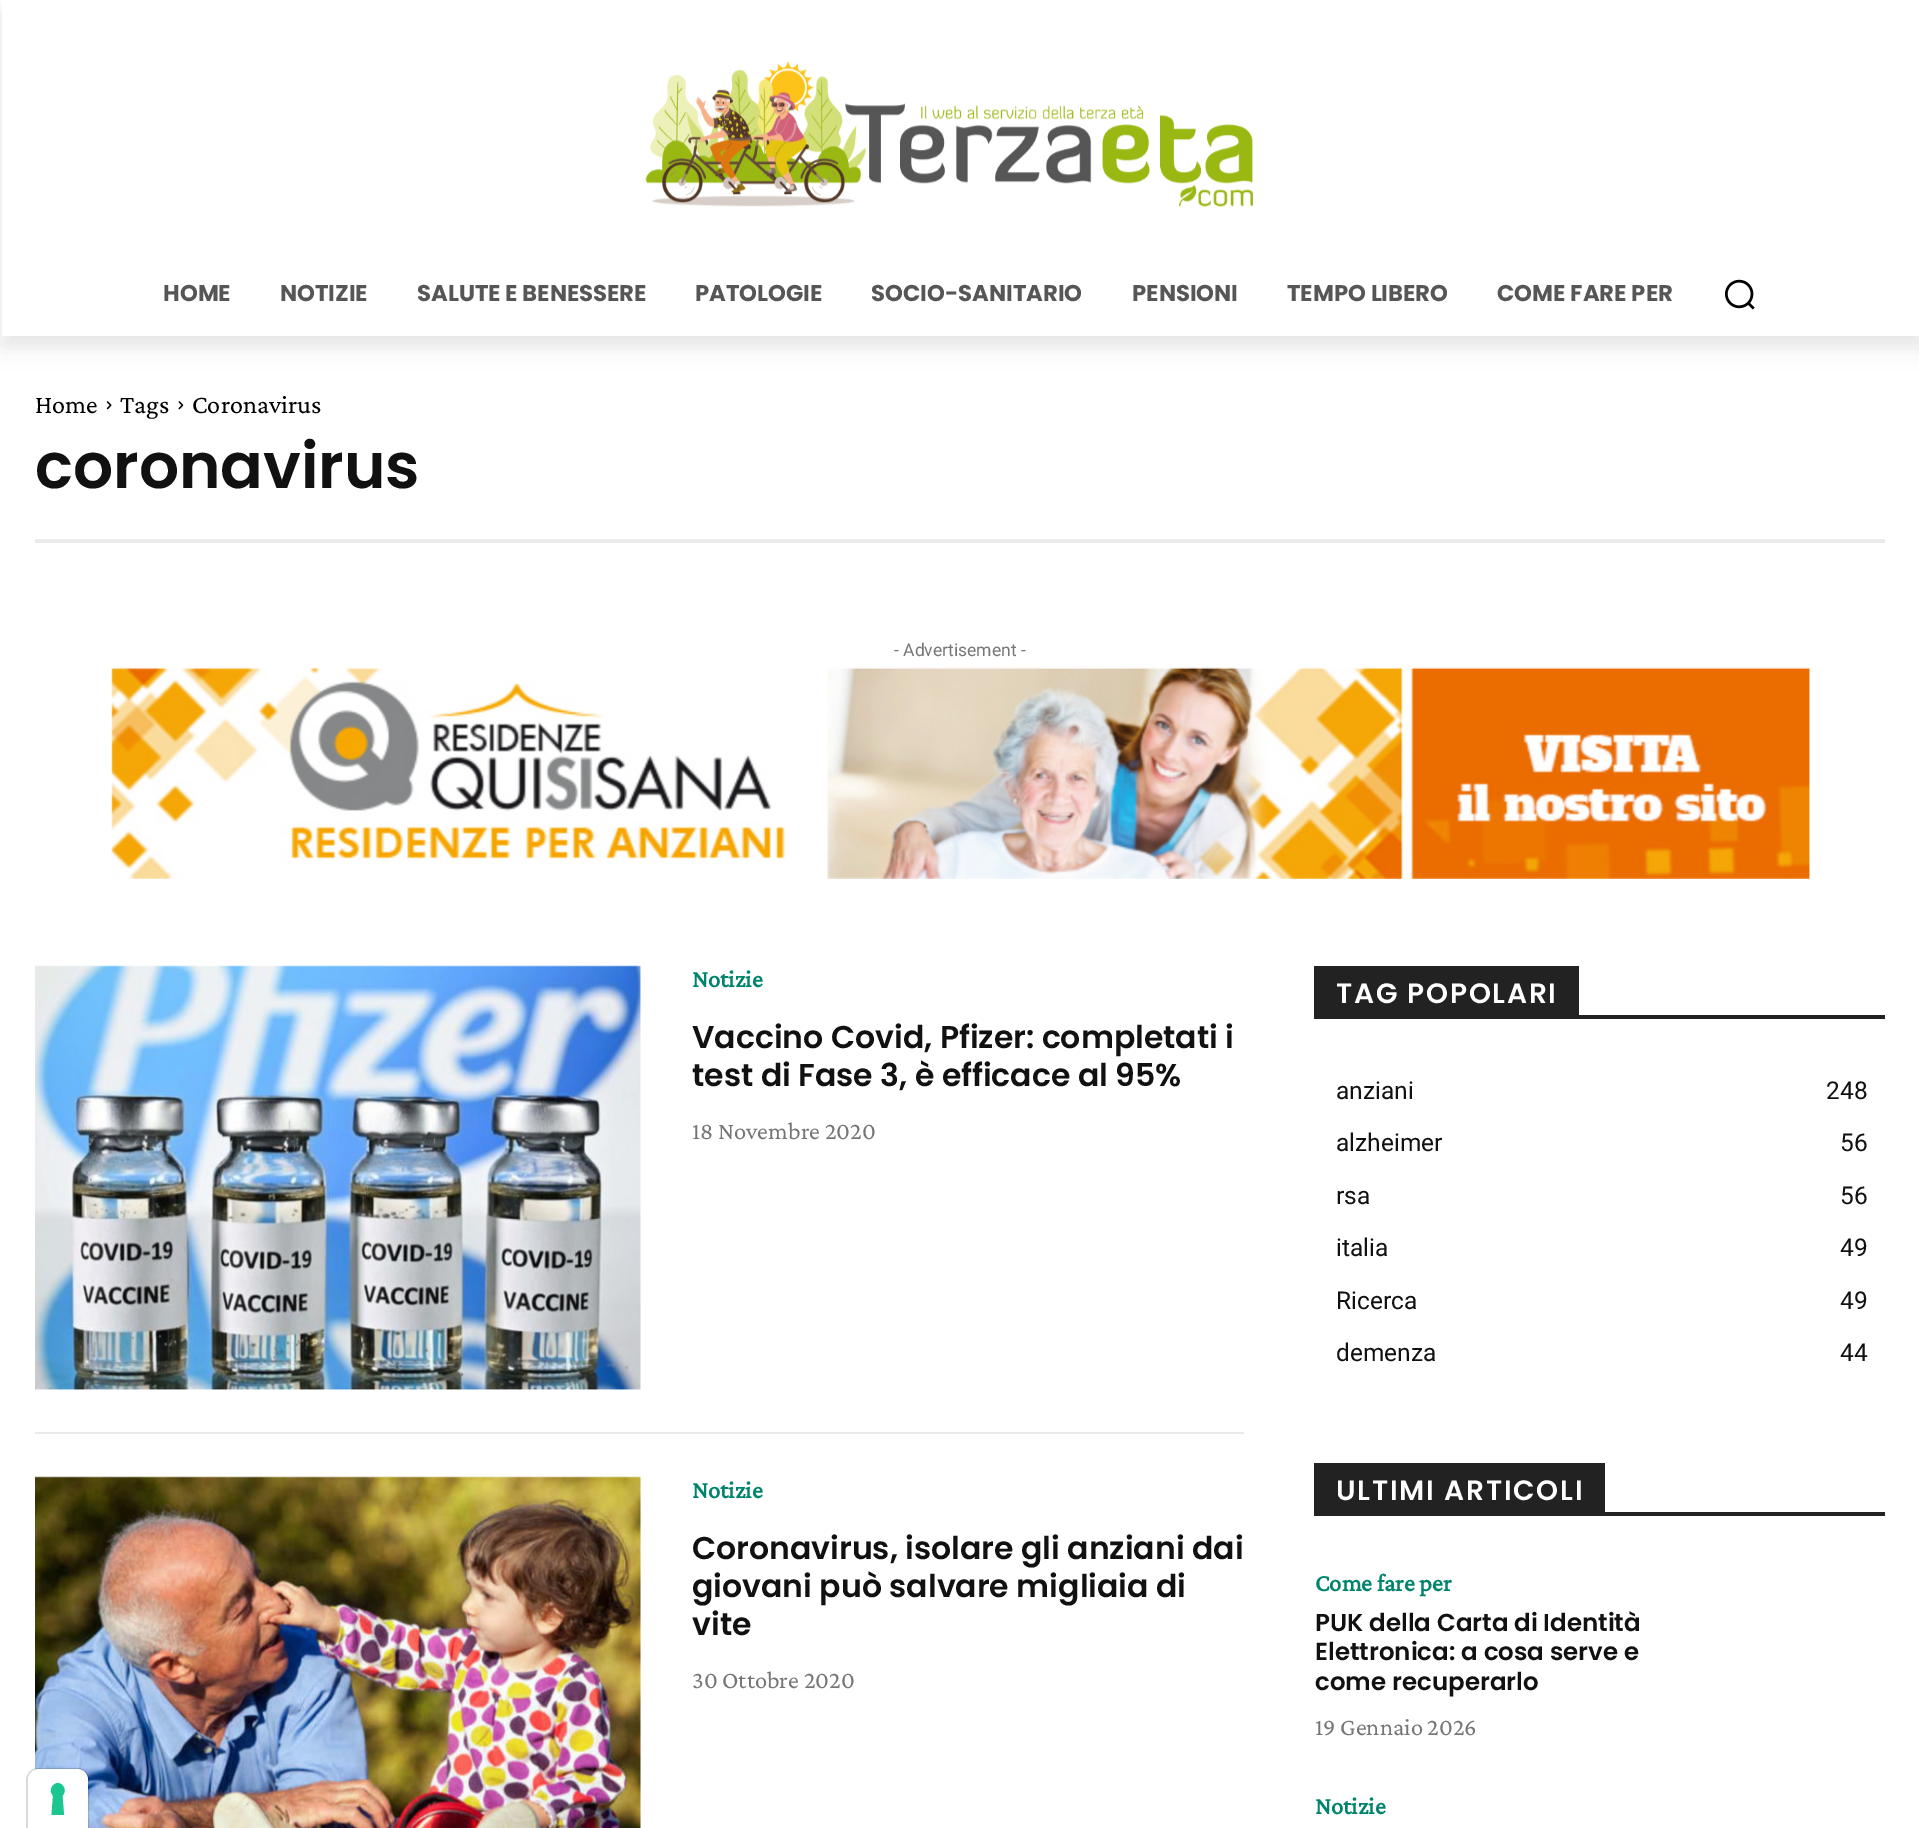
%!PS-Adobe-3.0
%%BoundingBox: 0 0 1919 1828
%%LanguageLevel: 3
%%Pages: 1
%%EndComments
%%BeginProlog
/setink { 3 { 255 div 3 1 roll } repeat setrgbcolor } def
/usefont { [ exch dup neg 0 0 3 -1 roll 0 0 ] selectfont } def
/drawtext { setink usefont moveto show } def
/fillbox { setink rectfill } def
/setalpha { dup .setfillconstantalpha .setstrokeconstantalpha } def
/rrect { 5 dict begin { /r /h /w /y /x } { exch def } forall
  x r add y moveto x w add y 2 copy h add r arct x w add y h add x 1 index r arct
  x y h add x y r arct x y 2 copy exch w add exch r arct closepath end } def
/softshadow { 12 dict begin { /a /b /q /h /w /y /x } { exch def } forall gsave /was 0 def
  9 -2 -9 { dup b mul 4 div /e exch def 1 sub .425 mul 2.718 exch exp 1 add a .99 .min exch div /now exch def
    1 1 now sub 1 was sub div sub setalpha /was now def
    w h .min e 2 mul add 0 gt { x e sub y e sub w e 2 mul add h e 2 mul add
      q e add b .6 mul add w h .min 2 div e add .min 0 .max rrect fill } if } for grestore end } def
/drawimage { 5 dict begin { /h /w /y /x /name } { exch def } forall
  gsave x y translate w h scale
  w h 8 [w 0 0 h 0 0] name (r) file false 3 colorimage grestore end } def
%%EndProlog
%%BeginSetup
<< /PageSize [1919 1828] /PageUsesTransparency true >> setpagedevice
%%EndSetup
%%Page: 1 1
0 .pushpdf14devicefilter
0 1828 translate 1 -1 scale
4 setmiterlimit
0 0 1919 1828 255 255 255 fillbox
(assets/img1.rgb) 645 61 608 146 drawimage
gsave
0 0 moveto 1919 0 lineto 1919 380 lineto 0 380 lineto closepath 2 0 moveto 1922 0 lineto 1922 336 lineto 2 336 lineto closepath eoclip newpath
0 0 0 setink
2 11 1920 336 0 10.5 0.1 softshadow
grestore
(HOME) 163 301 /Poppins-Bold 22.75 87 86 86 drawtext
(NOTIZIE) 280 301 /Poppins-Bold 22.75 87 86 86 drawtext
(SALUTE E BENESSERE) 417 301 /Poppins-Bold 22.75 87 86 86 drawtext
(PATOLOGIE) 695 301 /Poppins-Bold 22.75 87 86 86 drawtext
(SOCIO-SANITARIO) 871 301 /Poppins-Bold 22.75 87 86 86 drawtext
(PENSIONI) 1132 301 /Poppins-Bold 22.75 87 86 86 drawtext
(TEMPO LIBERO) 1287 301 /Poppins-Bold 22.75 87 86 86 drawtext
(COME FARE PER) 1497 301 /Poppins-Bold 22.75 87 86 86 drawtext
(assets/img2.rgb) 1725 279 30 31 drawimage
(Home) 35 413 /CrimsonPro-Regular 26.25 0 0 0 drawtext
(assets/img3.rgb) 106 401 6 9 drawimage
(Tags) 120 413 /CrimsonPro-Regular 26.25 0 0 0 drawtext
(assets/img4.rgb) 178 401 6 9 drawimage
(Coronavirus) 192 413 /CrimsonPro-Regular 26.25 0 0 0 drawtext
(coronavirus) 35 488 /Poppins-SemiBold 63 17 17 17 drawtext
35 539 1850 4 235 235 235 fillbox
(- Advertisement -) 894 656 /Roboto-Regular 17.5 118 118 118 drawtext
(assets/img5.rgb) 111 667 1699 212 drawimage
(assets/img6.rgb) 35 965 606 425 drawimage
(Notizie) 692 987 /CrimsonPro-Bold 24.5 0 132 107 drawtext
(Vaccino Covid, Pfizer: completati i) 692 1048 /Poppins-SemiBold 31.5 17 17 17 drawtext
(test di Fase 3, è efficace al 95%) 692 1086 /Poppins-SemiBold 31.5 17 17 17 drawtext
(18 Novembre 2020) 692 1139 /CrimsonPro-Regular 24.5 118 118 118 drawtext
35 1432 1209 2 234 234 234 fillbox
(assets/img7.rgb) 35 1476 606 352 drawimage
(Notizie) 692 1498 /CrimsonPro-Bold 24.5 0 132 107 drawtext
(Coronavirus, isolare gli anziani dai) 692 1559 /Poppins-SemiBold 31.5 17 17 17 drawtext
(giovani può salvare migliaia di) 692 1597 /Poppins-SemiBold 31.5 17 17 17 drawtext
(vite) 692 1635 /Poppins-SemiBold 31.5 17 17 17 drawtext
(30 Ottobre 2020) 692 1688 /CrimsonPro-Regular 24.5 118 118 118 drawtext
1314 1015 571 4 34 34 34 fillbox
1314 966 265 49 34 34 34 fillbox
/Poppins-SemiBold 28 usefont
255 255 255 setink
1336 1003 moveto 1.75 0 (TAG POPOLARI) ashow
(anziani) 1336 1099 /Roboto-Regular 24.5 17 17 17 drawtext
(248) 1826 1099 /Roboto-Regular 24.5 17 17 17 drawtext
(alzheimer) 1336 1151 /Roboto-Regular 24.5 17 17 17 drawtext
(56) 1840 1151 /Roboto-Regular 24.5 17 17 17 drawtext
(rsa) 1336 1204 /Roboto-Regular 24.5 17 17 17 drawtext
(56) 1840 1204 /Roboto-Regular 24.5 17 17 17 drawtext
(italia) 1336 1256 /Roboto-Regular 24.5 17 17 17 drawtext
(49) 1840 1256 /Roboto-Regular 24.5 17 17 17 drawtext
(Ricerca) 1336 1309 /Roboto-Regular 24.5 17 17 17 drawtext
(49) 1840 1309 /Roboto-Regular 24.5 17 17 17 drawtext
(demenza) 1336 1361 /Roboto-Regular 24.5 17 17 17 drawtext
(44) 1840 1361 /Roboto-Regular 24.5 17 17 17 drawtext
1314 1512 571 4 34 34 34 fillbox
1314 1463 291 49 34 34 34 fillbox
/Poppins-SemiBold 28 usefont
255 255 255 setink
1336 1500 moveto 1.75 0 (ULTIMI ARTICOLI) ashow
(Come fare per) 1315 1591 /CrimsonPro-Bold 24.5 0 132 107 drawtext
(PUK della Carta di Identità) 1315 1631 /Poppins-SemiBold 24.5 17 17 17 drawtext
(Elettronica: a cosa serve e) 1315 1660 /Poppins-SemiBold 24.5 17 17 17 drawtext
(come recuperarlo) 1315 1690 /Poppins-SemiBold 24.5 17 17 17 drawtext
(19 Gennaio 2026) 1315 1735 /CrimsonPro-Regular 24.5 118 118 118 drawtext
(Notizie) 1315 1814 /CrimsonPro-Bold 24.5 0 132 107 drawtext
0.15 setalpha
0 0 0 setink
2 setlinewidth
38 1769 moveto 77 1769 lineto 83 1769 88 1774 88 1780 curveto 88 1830 lineto 27 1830 lineto 27 1780 lineto 27 1774 32 1769 38 1769 curveto closepath stroke
1 setalpha
255 255 255 setink
39 1769 moveto 77 1769 lineto 83 1769 88 1774 88 1780 curveto 88 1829 lineto 28 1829 lineto 28 1780 lineto 28 1774 33 1769 39 1769 curveto closepath fill
28 198 145 setink
58 1783 moveto 64 1783.5 67 1791.5 62.5 1795.5 curveto 64 1815 lineto 51.5 1815 lineto 53 1795.5 lineto 48.5 1791.5 51.5 1783.5 58 1783 curveto closepath eofill
.poppdf14devicefilter showpage
%%EOF
